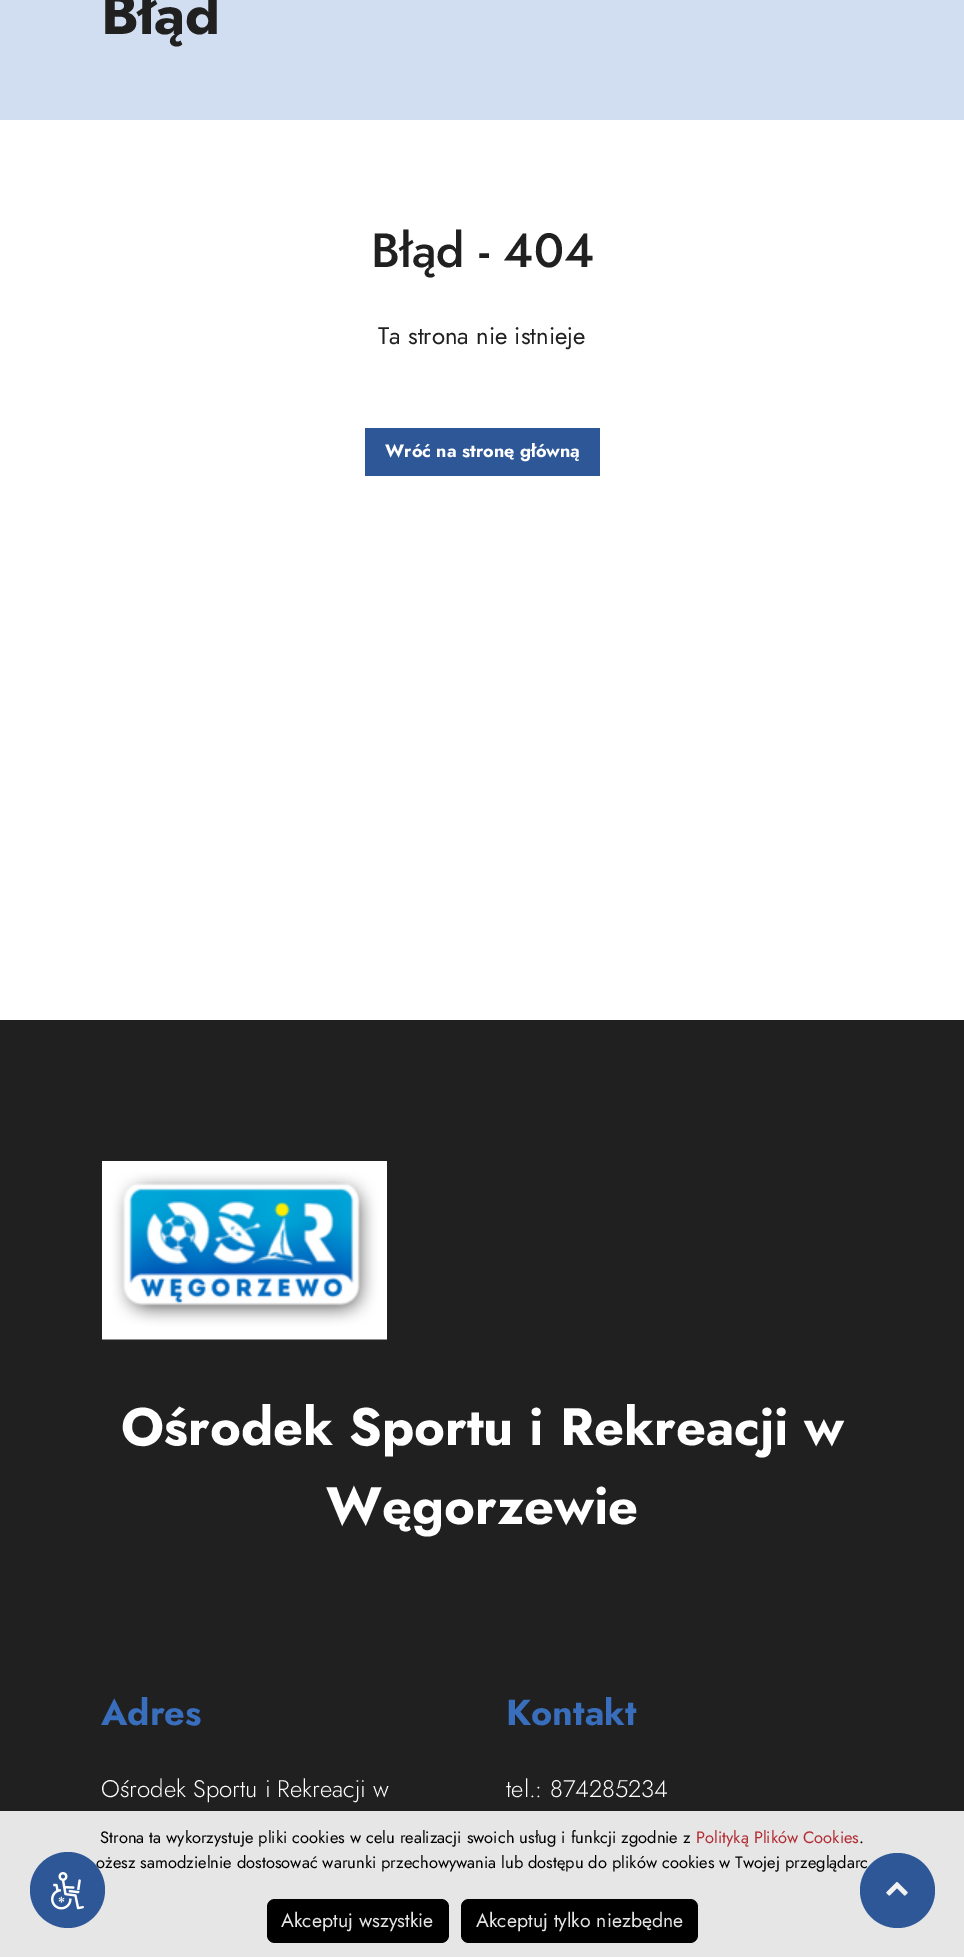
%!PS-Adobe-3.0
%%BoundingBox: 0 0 964 1957
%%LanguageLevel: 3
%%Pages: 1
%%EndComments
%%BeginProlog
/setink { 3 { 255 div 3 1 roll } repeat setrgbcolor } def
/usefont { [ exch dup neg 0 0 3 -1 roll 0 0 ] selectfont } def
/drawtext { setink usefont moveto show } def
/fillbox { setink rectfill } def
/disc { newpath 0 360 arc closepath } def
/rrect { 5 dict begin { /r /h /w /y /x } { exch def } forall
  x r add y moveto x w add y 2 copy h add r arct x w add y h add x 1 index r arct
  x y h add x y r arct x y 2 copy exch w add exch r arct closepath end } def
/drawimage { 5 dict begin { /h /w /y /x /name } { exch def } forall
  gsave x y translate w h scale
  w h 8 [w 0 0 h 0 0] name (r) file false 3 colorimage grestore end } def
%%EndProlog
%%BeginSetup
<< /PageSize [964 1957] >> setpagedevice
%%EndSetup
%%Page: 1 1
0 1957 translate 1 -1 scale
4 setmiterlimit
0 0 964 1957 255 255 255 fillbox
0 0 964 120 209 222 241 fillbox
(Błąd) 101 34 /Jost-Bold 57 32 32 32 drawtext
(Błąd - 404) 371 267 /Jost-Medium 48 32 32 32 drawtext
(Ta strona nie istnieje) 378 344 /Jost-Regular 24 32 32 32 drawtext
365 428 235 48 45 87 150 fillbox
(Wróć na stronę główną) 385 457 /Jost-Bold 18 255 255 255 drawtext
0 1020 964 791 32 32 32 fillbox
(assets/img1.rgb) 102 1161 285 179 drawimage
(Ośrodek Sportu i Rekreacji w) 121 1445 /Jost-Bold 52.5 255 255 255 drawtext
(Węgorzewie) 326 1524 /Jost-Bold 52.5 255 255 255 drawtext
(Adres) 101 1725 /Jost-Bold 36 57 110 189 drawtext
(Ośrodek Sportu i Rekreacji w) 101 1797 /Jost-Light 24 255 255 255 drawtext
(Kontakt) 506 1725 /Jost-Bold 36 57 110 189 drawtext
(tel.: 874285234) 506 1797 /Jost-Light 24 255 255 255 drawtext
0 1811 964 146 230 230 230 fillbox
(ożesz samodzielnie dostosować warunki przechowywania lub dostępu do plików cookies w Twojej przeglądarc) 96 1868 /Jost-Regular 16.5 0 0 0 drawtext
45 87 150 setink
68 1928 moveto 47 1928 30 1911 30 1890 curveto 30 1869 47 1852 68 1852 curveto 88 1852 105 1869 105 1890 curveto 105 1911 88 1928 68 1928 curveto closepath fill
(assets/img2.rgb) 51 1872 33 38 drawimage
(Strona ta wykorzystuje pliki cookies w celu realizacji swoich usług i funkcji zgodnie z) 100 1843 /Jost-Regular 16.5 0 0 0 drawtext
(Polityką Plików Cookies) 696 1843 /Jost-Regular 16.5 179 43 50 drawtext
(.) 859 1843 /Jost-Regular 16.5 0 0 0 drawtext
267 1899 182 44 8 rrect fill
(Akceptuj wszystkie) 281 1927 /Jost-Regular 19.5 230 230 230 drawtext
0 0 0 setink
461 1899 237 44 8 rrect fill
(Akceptuj tylko niezbędne) 476 1927 /Jost-Regular 19.5 230 230 230 drawtext
45 87 150 setink
897.5 1890.5 37.5 disc fill
(assets/img3.rgb) 886 1881 22 15 drawimage
showpage
%%EOF
